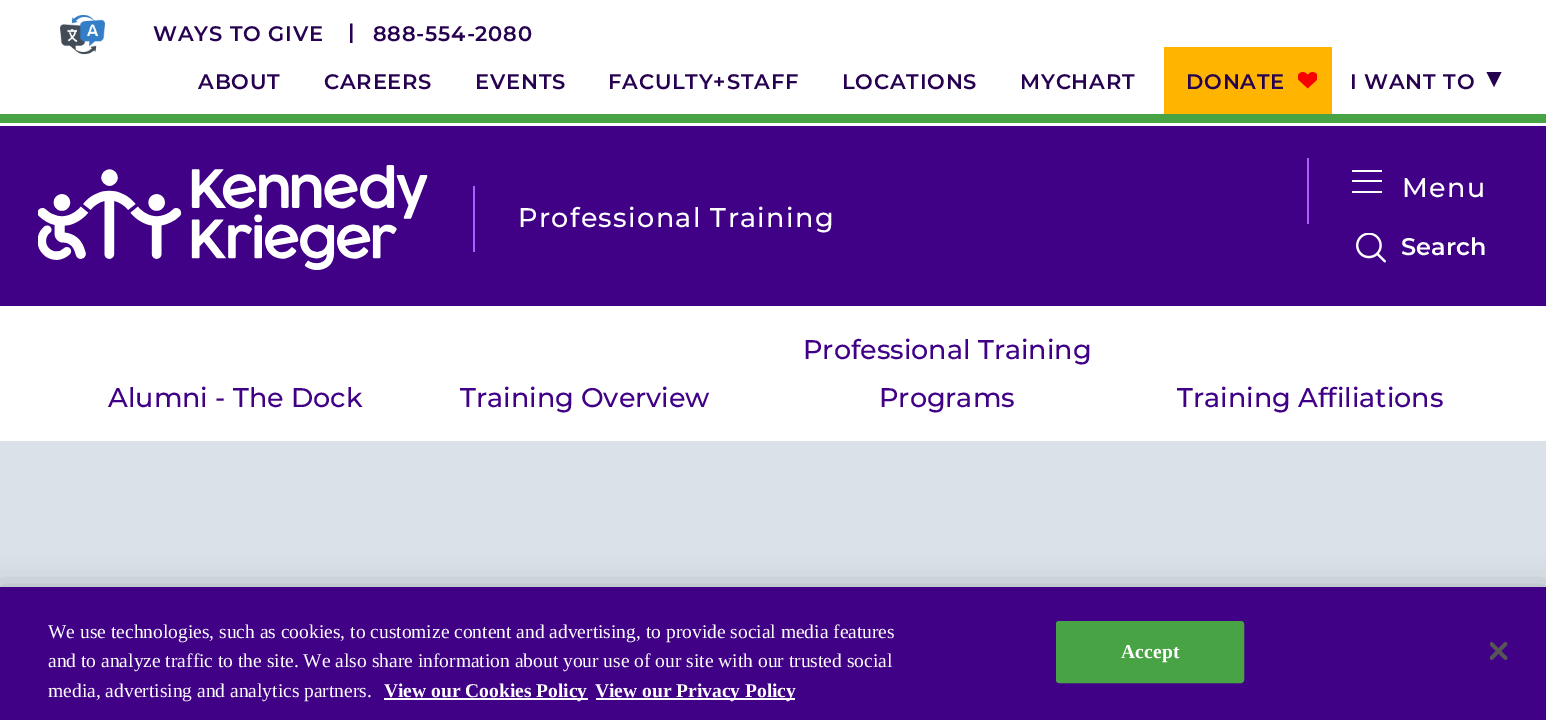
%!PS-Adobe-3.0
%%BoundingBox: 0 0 1546 720
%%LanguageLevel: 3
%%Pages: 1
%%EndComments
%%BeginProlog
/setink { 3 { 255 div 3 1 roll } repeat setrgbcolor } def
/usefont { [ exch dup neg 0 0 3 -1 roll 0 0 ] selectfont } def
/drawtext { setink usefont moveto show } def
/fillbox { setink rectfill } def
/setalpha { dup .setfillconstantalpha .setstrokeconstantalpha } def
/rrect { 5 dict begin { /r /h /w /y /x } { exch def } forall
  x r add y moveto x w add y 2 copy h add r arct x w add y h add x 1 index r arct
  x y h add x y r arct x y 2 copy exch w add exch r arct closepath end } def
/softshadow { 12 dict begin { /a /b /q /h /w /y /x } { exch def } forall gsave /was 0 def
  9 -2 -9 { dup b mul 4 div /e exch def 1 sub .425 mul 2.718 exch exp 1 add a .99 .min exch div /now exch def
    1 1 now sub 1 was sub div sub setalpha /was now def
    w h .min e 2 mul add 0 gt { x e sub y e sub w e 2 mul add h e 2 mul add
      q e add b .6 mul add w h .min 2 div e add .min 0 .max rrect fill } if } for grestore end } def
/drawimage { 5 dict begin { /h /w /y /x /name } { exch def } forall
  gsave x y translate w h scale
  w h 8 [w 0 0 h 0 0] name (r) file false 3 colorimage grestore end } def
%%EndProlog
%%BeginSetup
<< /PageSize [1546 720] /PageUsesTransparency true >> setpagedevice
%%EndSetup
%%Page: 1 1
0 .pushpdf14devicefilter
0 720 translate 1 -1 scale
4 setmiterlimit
0 0 1546 720 255 255 255 fillbox
0 114 1546 9 72 163 69 fillbox
(assets/img1.rgb) 60 15 45 40 drawimage
/Montserrat-SemiBold 21 usefont
38 1 80 setink
153 41 moveto 0.8 0 (WAYS TO GIVE) ashow
348 39 moveto 0.8 0 (|) ashow
373 41 moveto 0.8 0 (888-554-2080) ashow
198 89 moveto 0.8 0 (ABOUT) ashow
324 89 moveto 0.8 0 (CAREERS) ashow
475 89 moveto 0.8 0 (EVENTS) ashow
608 89 moveto 0.8 0 (FACULTY+STAFF) ashow
842 89 moveto 0.8 0 (LOCATIONS) ashow
1020 89 moveto 0.8 0 (MYCHART) ashow
1164 47 168 67 255 181 0 fillbox
38 1 80 setink
1186 89 moveto 0.8 0 (DONATE) ashow
(assets/img2.rgb) 1298 72 19 17 drawimage
1350 89 moveto 0.8 0 (I WANT TO) ashow
1486.5 72 moveto 1501.5 72 lineto 1494 87 lineto closepath fill
0 126 1546 180 64 1 134 fillbox
(assets/img3.rgb) 38 165 390 105 drawimage
473 186 2 66 170 95 254 fillbox
/Montserrat-Medium 27 usefont
255 255 255 setink
518 227 moveto 1.35 0 (Professional Training) ashow
1307 158 2 66 170 95 254 fillbox
1352 170 30 2 255 255 255 fillbox
1352 180 30 2 255 255 255 fillbox
1352 191 30 2 255 255 255 fillbox
1402 197 moveto 1.35 0 (Menu) ashow
(assets/img4.rgb) 1356 233 30 30 drawimage
(Search) 1401 255 /Montserrat-SemiBold 24 255 255 255 drawtext
(Alumni - The Dock) 108 407 /Montserrat-Medium 27 64 1 134 drawtext
(Training Overview) 460 407 /Montserrat-Medium 27 64 1 134 drawtext
(Professional Training) 803 359 /Montserrat-Medium 27 64 1 134 drawtext
(Programs) 879 407 /Montserrat-Medium 27 64 1 134 drawtext
(Training Affiliations) 1177 407 /Montserrat-Medium 27 64 1 134 drawtext
0 441 1546 146 218 225 232 fillbox
0 0 0 setink
0 587 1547 133 0 13.5 0.2 softshadow
0 587 1546 133 64 1 134 fillbox
(We use technologies, such as cookies, to customize content and advertising, to provide social media features) 48 638 /LiberationSerif-Regular 19.5 255 255 255 drawtext
(and to analyze traffic to the site. We also share information about your use of our site with our trusted social) 48 667 /LiberationSerif-Regular 19.5 255 255 255 drawtext
(media, advertising and analytics partners.) 48 697 /LiberationSerif-Regular 19.5 255 255 255 drawtext
384 698 204 2 255 255 255 fillbox
(View our Cookies Policy) 384 697 /LiberationSerif-Bold 19.5 255 255 255 drawtext
596 698 199 2 255 255 255 fillbox
(View our Privacy Policy) 595 697 /LiberationSerif-Bold 19.5 255 255 255 drawtext
72 163 69 setink
1057 622 186 60 2 rrect gsave fill grestore
2 setlinewidth
stroke
255 255 255 setink
1121 658 moveto 0.25 0 (Accept) ashow
(assets/img5.rgb) 1490 642 18 18 drawimage
.poppdf14devicefilter showpage
%%EOF
